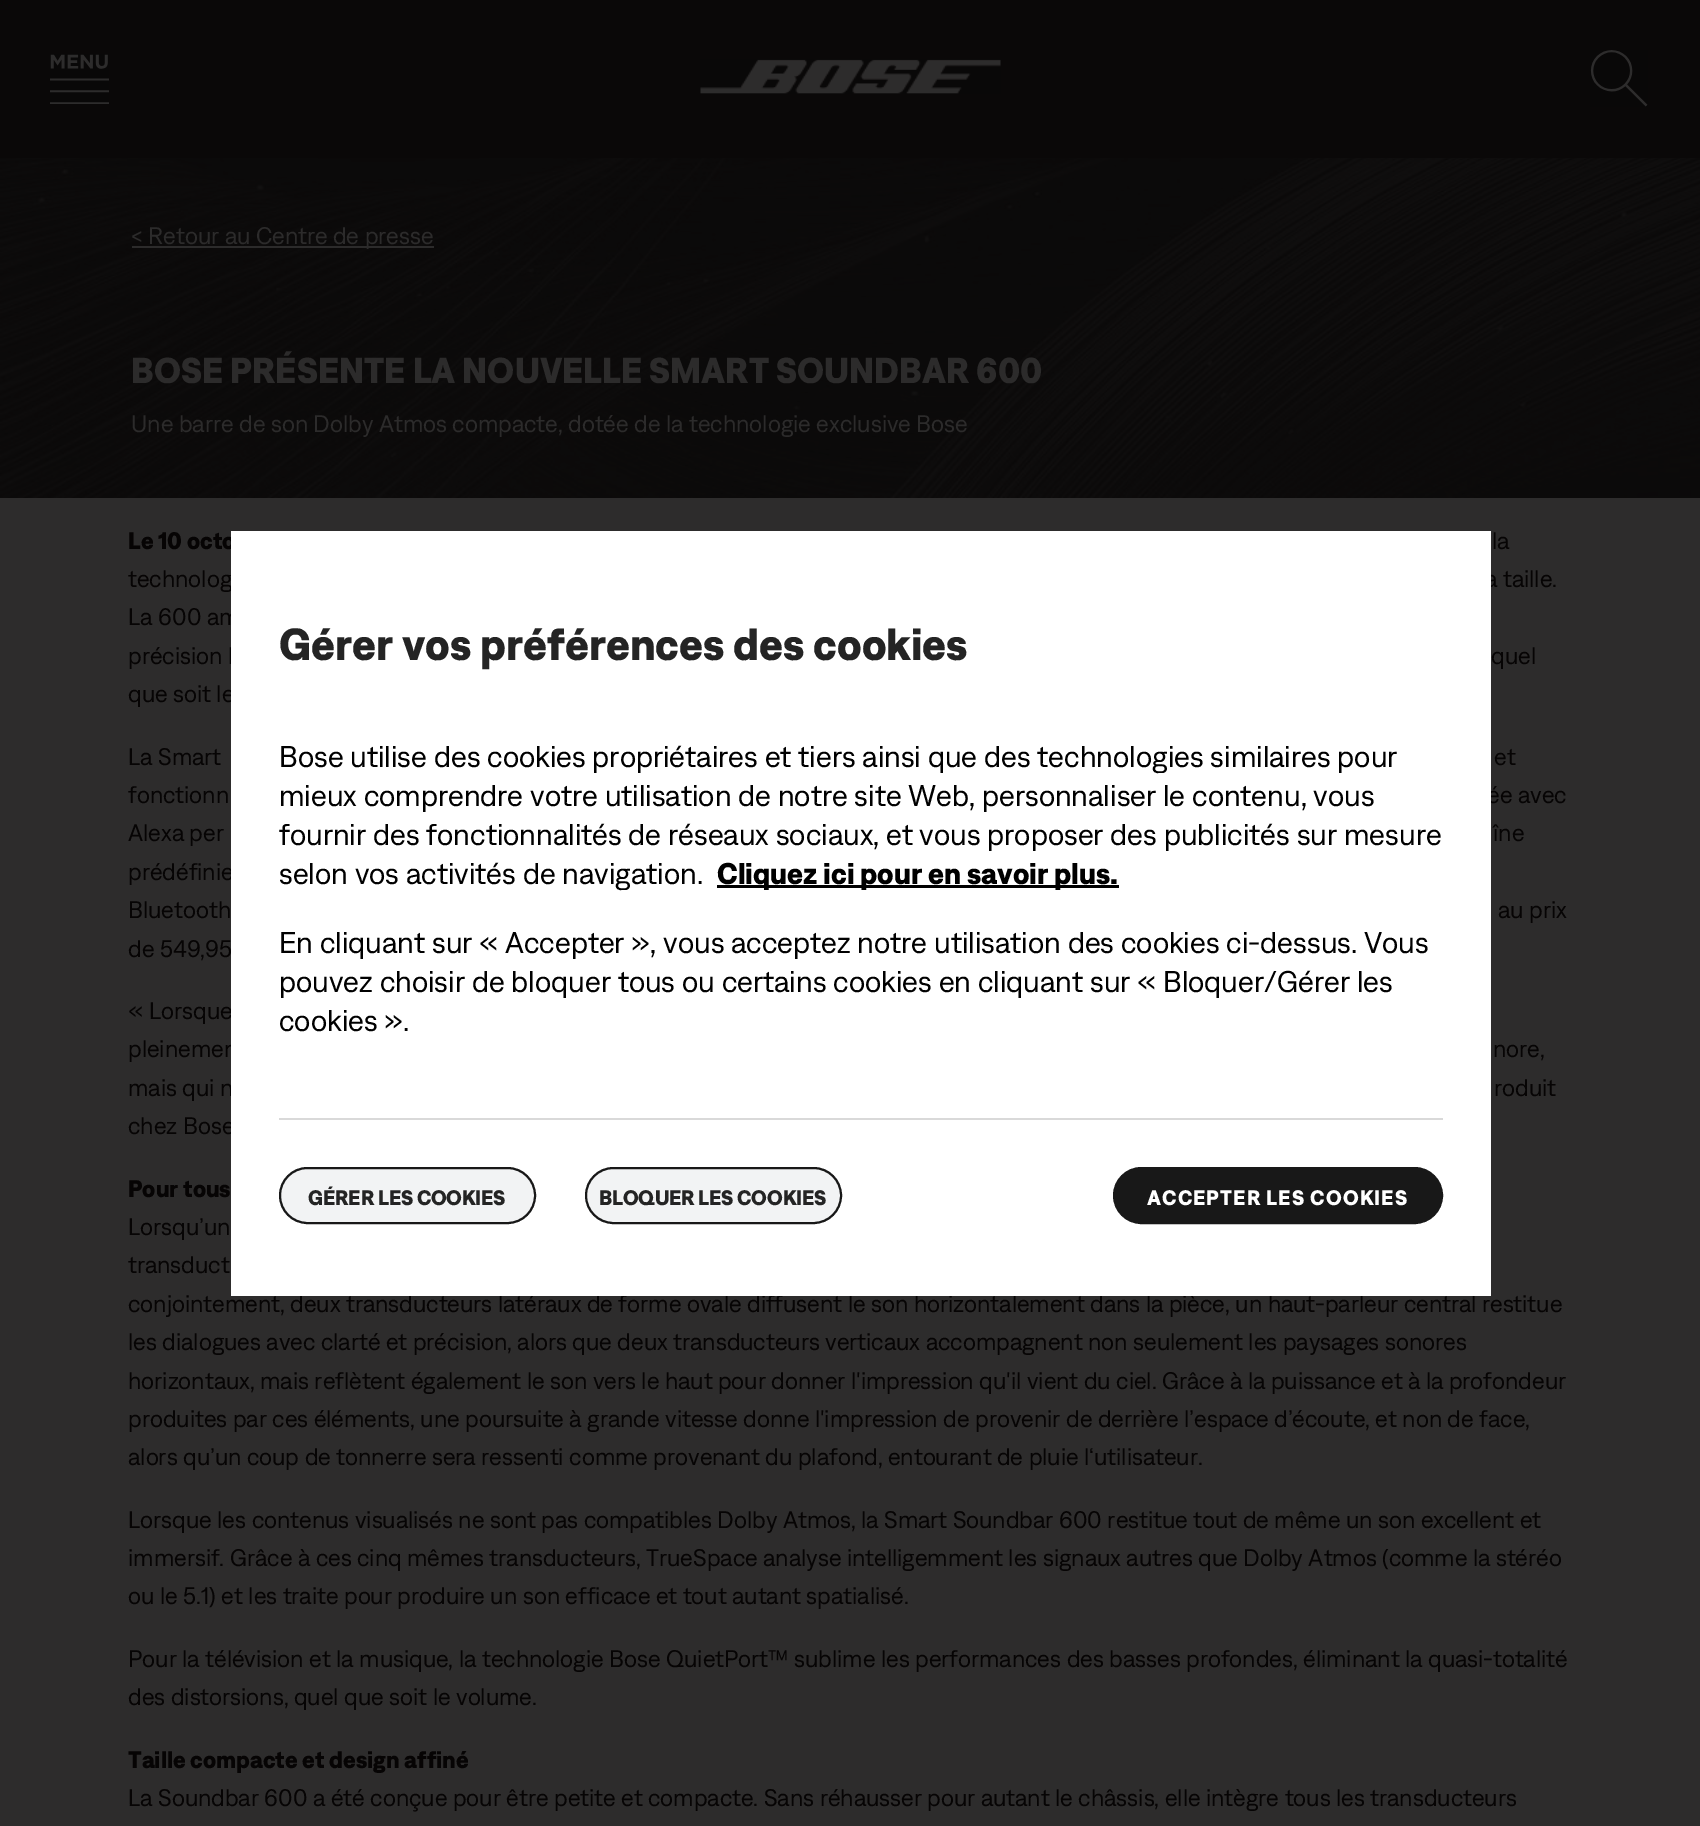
%!PS-Adobe-3.0
%%BoundingBox: 0 0 1700 1826
%%LanguageLevel: 3
%%Pages: 1
%%EndComments
%%BeginProlog
/setink { 3 { 255 div 3 1 roll } repeat setrgbcolor } def
/usefont { [ exch dup neg 0 0 3 -1 roll 0 0 ] selectfont } def
/drawtext { setink usefont moveto show } def
/fillbox { setink rectfill } def
/rrect { 5 dict begin { /r /h /w /y /x } { exch def } forall
  x r add y moveto x w add y 2 copy h add r arct x w add y h add x 1 index r arct
  x y h add x y r arct x y 2 copy exch w add exch r arct closepath end } def
/drawimage { 5 dict begin { /h /w /y /x /name } { exch def } forall
  gsave x y translate w h scale
  w h 8 [w 0 0 h 0 0] name (r) file false 3 colorimage grestore end } def
%%EndProlog
%%BeginSetup
<< /PageSize [1700 1826] >> setpagedevice
%%EndSetup
%%Page: 1 1
0 1826 translate 1 -1 scale
4 setmiterlimit
0 0 1700 1826 255 255 255 fillbox
0 0 1700 158 10 8 8 fillbox
(assets/img1.rgb) 50 54 59 50 drawimage
(assets/img2.rgb) 700 59 301 35 drawimage
(assets/img3.rgb) 1590 50 58 57 drawimage
(assets/img4.rgb) 0 158 1700 340 drawimage
132 246 302 2 44 43 43 fillbox
(< Retour au Centre de presse) 131 244 /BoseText-Regular 24 44 43 43 drawtext
(BOSE PRÉSENTE LA NOUVELLE SMART SOUNDBAR 600) 131 383 /BoseText-Bold 36 44 43 43 drawtext
(Une barre de son Dolby Atmos compacte, dotée de la technologie exclusive Bose) 131 432 /BoseText-Regular 24 44 43 43 drawtext
0 498 1700 1328 45 44 44 fillbox
(Le 10 octo) 128 549 /BoseText-Bold 24 6 4 4 drawtext
(la) 1492 549 /BoseText-Regular 24 6 4 4 drawtext
(technolog) 128 587 /BoseText-Regular 24 6 4 4 drawtext
(a taille.) 1485 587 /BoseText-Regular 24 6 4 4 drawtext
(La 600 am) 128 625 /BoseText-Regular 24 6 4 4 drawtext
(précision l) 128 664 /BoseText-Regular 24 6 4 4 drawtext
(quel) 1491 664 /BoseText-Regular 24 6 4 4 drawtext
(que soit le) 128 702 /BoseText-Regular 24 6 4 4 drawtext
(La Smart) 128 765 /BoseText-Regular 24 6 4 4 drawtext
(et) 1494 765 /BoseText-Regular 24 6 4 4 drawtext
(fonctionn) 128 803 /BoseText-Regular 24 6 4 4 drawtext
(ée avec) 1487 803 /BoseText-Regular 24 6 4 4 drawtext
(Alexa per) 128 841 /BoseText-Regular 24 6 4 4 drawtext
(îne) 1493 841 /BoseText-Regular 24 6 4 4 drawtext
(prédéfinie) 128 880 /BoseText-Regular 24 6 4 4 drawtext
(Bluetooth) 128 918 /BoseText-Regular 24 6 4 4 drawtext
(au prix) 1498 918 /BoseText-Regular 24 6 4 4 drawtext
(de 549,95) 128 957 /BoseText-Regular 24 6 4 4 drawtext
(« Lorsque) 128 1019 /BoseText-Regular 24 6 4 4 drawtext
(pleinemen) 128 1057 /BoseText-Regular 24 6 4 4 drawtext
(nore,) 1493 1057 /BoseText-Regular 24 6 4 4 drawtext
(mais qui n) 128 1096 /BoseText-Regular 24 6 4 4 drawtext
(roduit) 1494 1096 /BoseText-Regular 24 6 4 4 drawtext
(chez Bose) 128 1134 /BoseText-Regular 24 6 4 4 drawtext
(Pour tous) 128 1197 /BoseText-Bold 24 6 4 4 drawtext
(Lorsqu’un) 128 1235 /BoseText-Regular 24 6 4 4 drawtext
(transduct) 128 1273 /BoseText-Regular 24 6 4 4 drawtext
(conjointement, deux transducteurs latéraux de forme ovale diffusent le son horizontalement dans la pièce, un haut-parleur central restitue) 128 1312 /BoseText-Regular 24 6 4 4 drawtext
(les dialogues avec clarté et précision, alors que deux transducteurs verticaux accompagnent non seulement les paysages sonores) 128 1350 /BoseText-Regular 24 6 4 4 drawtext
(horizontaux, mais reflètent également le son vers le haut pour donner l'impression qu'il vient du ciel. Grâce à la puissance et à la profondeur) 128 1389 /BoseText-Regular 24 6 4 4 drawtext
(produites par ces éléments, une poursuite à grande vitesse donne l'impression de provenir de derrière l’espace d’écoute, et non de face,) 128 1427 /BoseText-Regular 24 6 4 4 drawtext
(alors qu’un coup de tonnerre sera ressenti comme provenant du plafond, entourant de pluie l‘utilisateur.) 128 1465 /BoseText-Regular 24 6 4 4 drawtext
(Lorsque les contenus visualisés ne sont pas compatibles Dolby Atmos, la Smart Soundbar 600 restitue tout de même un son excellent et) 128 1528 /BoseText-Regular 24 6 4 4 drawtext
(immersif. Grâce à ces cinq mêmes transducteurs, TrueSpace analyse intelligemment les signaux autres que Dolby Atmos \(comme la stéréo) 128 1566 /BoseText-Regular 24 6 4 4 drawtext
(ou le 5.1\) et les traite pour produire un son efficace et tout autant spatialisé.) 128 1604 /BoseText-Regular 24 6 4 4 drawtext
(Pour la télévision et la musique, la technologie Bose QuietPort™ sublime les performances des basses profondes, éliminant la quasi-totalité) 128 1667 /BoseText-Regular 24 6 4 4 drawtext
(des distorsions, quel que soit le volume.) 128 1705 /BoseText-Regular 24 6 4 4 drawtext
(Taille compacte et design affiné) 128 1768 /BoseText-Bold 24 6 4 4 drawtext
(La Soundbar 600 a été conçue pour être petite et compacte. Sans réhausser pour autant le châssis, elle intègre tous les transducteurs) 128 1806 /BoseText-Regular 24 6 4 4 drawtext
231 531 1260 765 255 255 255 fillbox
(Gérer vos préférences des cookies) 279 660 /BoseText-Bold 45 36 36 36 drawtext
(Bose utilise des cookies propriétaires et tiers ainsi que des technologies similaires pour) 279 767 /BoseText-Regular 30 0 0 0 drawtext
(mieux comprendre votre utilisation de notre site Web, personnaliser le contenu, vous) 279 806 /BoseText-Regular 30 0 0 0 drawtext
(fournir des fonctionnalités de réseaux sociaux, et vous proposer des publicités sur mesure) 279 845 /BoseText-Regular 30 0 0 0 drawtext
(selon vos activités de navigation.) 279 884 /BoseText-Regular 30 0 0 0 drawtext
717 885 402 3 0 0 0 fillbox
(Cliquez ici pour en savoir plus.) 717 884 /BoseText-Bold 30 0 0 0 drawtext
(En cliquant sur « Accepter », vous acceptez notre utilisation des cookies ci-dessus. Vous) 279 953 /BoseText-Regular 30 0 0 0 drawtext
(pouvez choisir de bloquer tous ou certains cookies en cliquant sur « Bloquer/Gérer les) 279 992 /BoseText-Regular 30 0 0 0 drawtext
(cookies ».) 279 1031 /BoseText-Regular 30 0 0 0 drawtext
279 1118 1164 2 217 217 217 fillbox
242 243 244 setink
280 1168 255 55 27.5 rrect gsave fill grestore
24 24 24 setink
2 setlinewidth
stroke
/BoseText-Bold 21 usefont
36 36 36 setink
308 1205 moveto -0.25 0 (GÉRER LES COOKIES) ashow
242 243 244 setink
586 1168 255 55 27.5 rrect gsave fill grestore
24 24 24 setink
stroke
36 36 36 setink
599 1205 moveto -0.25 0 (BLOQUER LES COOKIES) ashow
24 24 24 setink
1114 1168 328 55 27.5 rrect gsave fill grestore
stroke
255 255 255 setink
1147 1205 moveto 1.05 0 (ACCEPTER LES COOKIES) ashow
showpage
%%EOF
